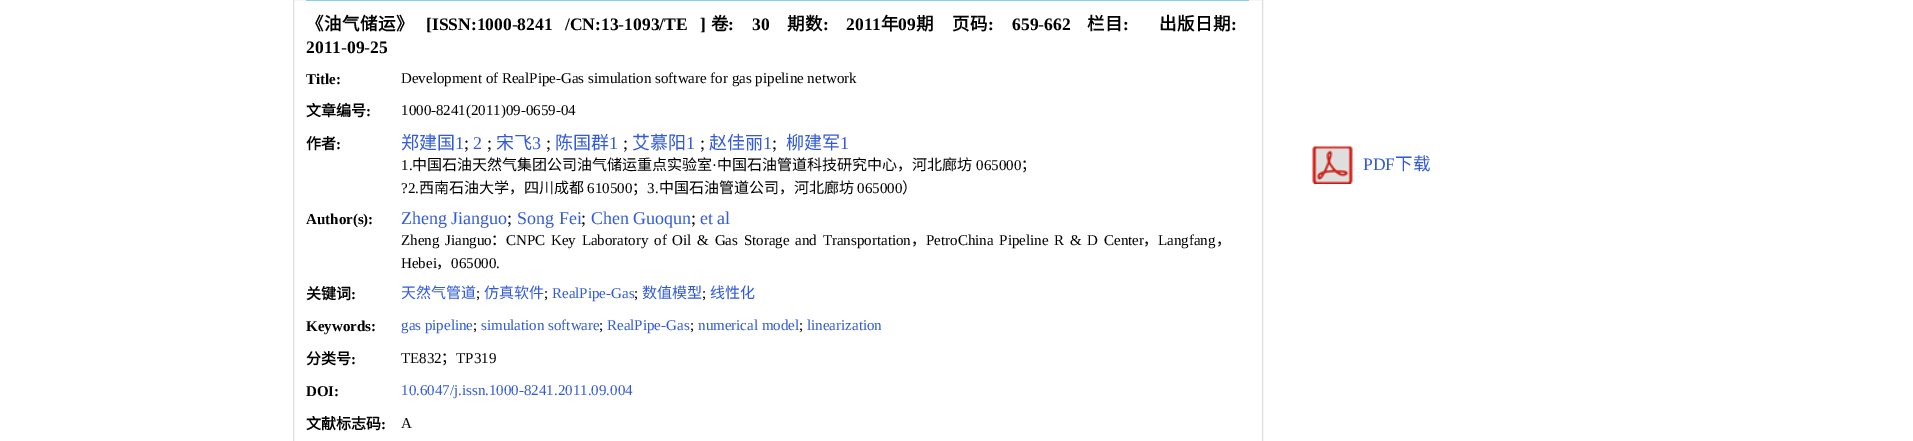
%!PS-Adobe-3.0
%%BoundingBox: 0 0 1913 441
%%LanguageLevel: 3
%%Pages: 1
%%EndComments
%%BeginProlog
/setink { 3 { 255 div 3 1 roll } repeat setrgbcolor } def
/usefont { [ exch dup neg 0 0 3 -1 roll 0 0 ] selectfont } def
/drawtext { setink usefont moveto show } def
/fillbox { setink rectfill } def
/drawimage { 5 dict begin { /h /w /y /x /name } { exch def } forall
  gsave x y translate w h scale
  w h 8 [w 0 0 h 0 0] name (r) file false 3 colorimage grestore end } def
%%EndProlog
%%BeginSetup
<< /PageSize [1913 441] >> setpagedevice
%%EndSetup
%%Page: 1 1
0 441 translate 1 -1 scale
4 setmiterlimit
0 0 1913 441 255 255 255 fillbox
222 222 222 setink
293.5 -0.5 969 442 rectstroke
306 0 943 1 135 206 250 fillbox
/NotoSansCJKSC-Bold 17.5 usefont
0 0 0 setink
306 30 moveto 0.5 0 (《油气储运》) ashow
([ISSN:1000-8241) 426 30 /LiberationSerif-Bold 17.5 0 0 0 drawtext
(/CN:13-1093/TE) 565 30 /LiberationSerif-Bold 17.5 0 0 0 drawtext
(]) 700 30 /LiberationSerif-Bold 17.5 0 0 0 drawtext
(卷) 711 30 /NotoSansCJKSC-Bold 17.5 0 0 0 drawtext
(:) 728 30 /LiberationSerif-Bold 17.5 0 0 0 drawtext
(30) 752 30 /LiberationSerif-Bold 17.5 0 0 0 drawtext
/NotoSansCJKSC-Bold 17.5 usefont
787 30 moveto 0.5 0 (期数) ashow
/LiberationSerif-Bold 17.5 usefont
823 30 moveto 0.5 0 (:) ashow
(2011) 846 30 /LiberationSerif-Bold 17.5 0 0 0 drawtext
(年) 881 30 /NotoSansCJKSC-Bold 17.5 0 0 0 drawtext
(09) 898 30 /LiberationSerif-Bold 17.5 0 0 0 drawtext
(期) 916 30 /NotoSansCJKSC-Bold 17.5 0 0 0 drawtext
952 30 moveto 0.5 0 (页码) ashow
/LiberationSerif-Bold 17.5 usefont
988 30 moveto 0.5 0 (:) ashow
(659-662) 1012 30 /LiberationSerif-Bold 17.5 0 0 0 drawtext
/NotoSansCJKSC-Bold 17.5 usefont
1087 30 moveto 0.5 0 (栏目) ashow
/LiberationSerif-Bold 17.5 usefont
1123 30 moveto 0.5 0 (:) ashow
/NotoSansCJKSC-Bold 17.5 usefont
1159 30 moveto 0.5 0 (出版日期) ashow
/LiberationSerif-Bold 17.5 usefont
1231 30 moveto 0.5 0 (:) ashow
(2011-09-25) 306 53 /LiberationSerif-Bold 17.5 0 0 0 drawtext
(Title:) 306 84 /LiberationSerif-Bold 15 0 0 0 drawtext
(Development of RealPipe-Gas simulation software for gas pipeline network) 401 83 /LiberationSerif-Regular 15 0 0 0 drawtext
(文章编号) 306 116 /NotoSansCJKSC-Bold 15 0 0 0 drawtext
(:) 366 116 /LiberationSerif-Bold 15 0 0 0 drawtext
(1000-8241\(2011\)09-0659-04) 401 115 /LiberationSerif-Regular 15 0 0 0 drawtext
(作者) 306 149 /NotoSansCJKSC-Bold 15 0 0 0 drawtext
(:) 336 149 /LiberationSerif-Bold 15 0 0 0 drawtext
(郑建国) 401 149 /NotoSansCJKSC-Regular 18 48 89 220 drawtext
(1) 455 149 /LiberationSerif-Regular 18 48 89 220 drawtext
(;) 464 149 /LiberationSerif-Regular 18 0 0 0 drawtext
(2) 473 149 /LiberationSerif-Regular 18 48 89 220 drawtext
(;) 487 149 /LiberationSerif-Regular 18 0 0 0 drawtext
(宋飞) 496 149 /NotoSansCJKSC-Regular 18 48 89 220 drawtext
(3) 532 149 /LiberationSerif-Regular 18 48 89 220 drawtext
(;) 546 149 /LiberationSerif-Regular 18 0 0 0 drawtext
(陈国群) 555 149 /NotoSansCJKSC-Regular 18 48 89 220 drawtext
(1) 609 149 /LiberationSerif-Regular 18 48 89 220 drawtext
(;) 623 149 /LiberationSerif-Regular 18 0 0 0 drawtext
(艾慕阳) 632 149 /NotoSansCJKSC-Regular 18 48 89 220 drawtext
(1) 686 149 /LiberationSerif-Regular 18 48 89 220 drawtext
(;) 700 149 /LiberationSerif-Regular 18 0 0 0 drawtext
(赵佳丽) 709 149 /NotoSansCJKSC-Regular 18 48 89 220 drawtext
(1) 763 149 /LiberationSerif-Regular 18 48 89 220 drawtext
(;) 772 149 /LiberationSerif-Regular 18 0 0 0 drawtext
(柳建军) 786 149 /NotoSansCJKSC-Regular 18 48 89 220 drawtext
(1) 840 149 /LiberationSerif-Regular 18 48 89 220 drawtext
(1.) 401 170 /LiberationSerif-Regular 15 0 0 0 drawtext
(中国石油天然气集团公司油气储运重点实验室) 412 170 /NotoSansCJKSC-Regular 15 0 0 0 drawtext
(·) 712 170 /LiberationSerif-Regular 15 0 0 0 drawtext
(中国石油管道科技研究中心，河北廊坊) 717 170 /NotoSansCJKSC-Regular 15 0 0 0 drawtext
(065000) 976 170 /LiberationSerif-Regular 15 0 0 0 drawtext
(；) 1021 170 /NotoSansCJKSC-Regular 15 0 0 0 drawtext
(?2.) 401 193 /LiberationSerif-Regular 15 0 0 0 drawtext
(西南石油大学，四川成都) 419 193 /NotoSansCJKSC-Regular 15 0 0 0 drawtext
(610500) 587 193 /LiberationSerif-Regular 15 0 0 0 drawtext
(；) 632 193 /NotoSansCJKSC-Regular 15 0 0 0 drawtext
(3.) 647 193 /LiberationSerif-Regular 15 0 0 0 drawtext
(中国石油管道公司，河北廊坊) 659 193 /NotoSansCJKSC-Regular 15 0 0 0 drawtext
(065000) 857 193 /LiberationSerif-Regular 15 0 0 0 drawtext
(）) 902 193 /NotoSansCJKSC-Regular 15 0 0 0 drawtext
(Author\(s\):) 306 224 /LiberationSerif-Bold 15 0 0 0 drawtext
(Zheng Jianguo) 401 224 /LiberationSerif-Regular 18 48 89 220 drawtext
(;) 507 224 /LiberationSerif-Regular 18 0 0 0 drawtext
(Song Fei) 517 224 /LiberationSerif-Regular 18 48 89 220 drawtext
(;) 581 224 /LiberationSerif-Regular 18 0 0 0 drawtext
(Chen Guoqun) 591 224 /LiberationSerif-Regular 18 48 89 220 drawtext
(;) 691 224 /LiberationSerif-Regular 18 0 0 0 drawtext
(et al) 700 224 /LiberationSerif-Regular 18 48 89 220 drawtext
/LiberationSerif-Regular 15 usefont
0 0 0 setink
401 245 moveto 2 0 32 (Zheng Jianguo) widthshow
(：) 491 245 /NotoSansCJKSC-Regular 15 0 0 0 drawtext
/LiberationSerif-Regular 15 usefont
506 245 moveto 2 0 32 (CNPC Key Laboratory of Oil & Gas Storage and Transportation) widthshow
(，) 911 245 /NotoSansCJKSC-Regular 15 0 0 0 drawtext
/LiberationSerif-Regular 15 usefont
926 245 moveto 2 0 32 (PetroChina Pipeline R & D Center) widthshow
(，) 1143 245 /NotoSansCJKSC-Regular 15 0 0 0 drawtext
(Langfang) 1158 245 /LiberationSerif-Regular 15 0 0 0 drawtext
(，) 1216 245 /NotoSansCJKSC-Regular 15 0 0 0 drawtext
(Hebei) 401 268 /LiberationSerif-Regular 15 0 0 0 drawtext
(，) 436 268 /NotoSansCJKSC-Regular 15 0 0 0 drawtext
(065000.) 451 268 /LiberationSerif-Regular 15 0 0 0 drawtext
(关键词) 306 299 /NotoSansCJKSC-Bold 15 0 0 0 drawtext
(:) 351 299 /LiberationSerif-Bold 15 0 0 0 drawtext
(天然气管道) 401 298 /NotoSansCJKSC-Regular 15 48 89 220 drawtext
(;) 476 298 /LiberationSerif-Regular 15 0 0 0 drawtext
(仿真软件) 484 298 /NotoSansCJKSC-Regular 15 48 89 220 drawtext
(;) 544 298 /LiberationSerif-Regular 15 0 0 0 drawtext
(RealPipe-Gas) 552 298 /LiberationSerif-Regular 15 48 89 220 drawtext
(;) 634 298 /LiberationSerif-Regular 15 0 0 0 drawtext
(数值模型) 642 298 /NotoSansCJKSC-Regular 15 48 89 220 drawtext
(;) 702 298 /LiberationSerif-Regular 15 0 0 0 drawtext
(线性化) 710 298 /NotoSansCJKSC-Regular 15 48 89 220 drawtext
(Keywords:) 306 331 /LiberationSerif-Bold 15 0 0 0 drawtext
(gas pipeline) 401 330 /LiberationSerif-Regular 15 48 89 220 drawtext
(;) 473 330 /LiberationSerif-Regular 15 0 0 0 drawtext
(simulation software) 481 330 /LiberationSerif-Regular 15 48 89 220 drawtext
(;) 599 330 /LiberationSerif-Regular 15 0 0 0 drawtext
(RealPipe-Gas) 607 330 /LiberationSerif-Regular 15 48 89 220 drawtext
(;) 690 330 /LiberationSerif-Regular 15 0 0 0 drawtext
(numerical model) 698 330 /LiberationSerif-Regular 15 48 89 220 drawtext
(;) 799 330 /LiberationSerif-Regular 15 0 0 0 drawtext
(linearization) 807 330 /LiberationSerif-Regular 15 48 89 220 drawtext
(分类号) 306 364 /NotoSansCJKSC-Bold 15 0 0 0 drawtext
(:) 351 364 /LiberationSerif-Bold 15 0 0 0 drawtext
(TE832) 401 363 /LiberationSerif-Regular 15 0 0 0 drawtext
(；) 441 363 /NotoSansCJKSC-Regular 15 0 0 0 drawtext
(TP319) 456 363 /LiberationSerif-Regular 15 0 0 0 drawtext
(DOI:) 306 396 /LiberationSerif-Bold 15 0 0 0 drawtext
(10.6047/j.issn.1000-8241.2011.09.004) 401 395 /LiberationSerif-Regular 15 48 89 220 drawtext
(文献标志码) 306 429 /NotoSansCJKSC-Bold 15 0 0 0 drawtext
(:) 381 429 /LiberationSerif-Bold 15 0 0 0 drawtext
(A) 401 428 /LiberationSerif-Regular 15 0 0 0 drawtext
(assets/img1.rgb) 1312 146 41 38 drawimage
(PDF) 1363 170 /LiberationSerif-Regular 17.5 48 89 220 drawtext
(下载) 1395 170 /NotoSansCJKSC-Regular 17.5 48 89 220 drawtext
showpage
%%EOF
